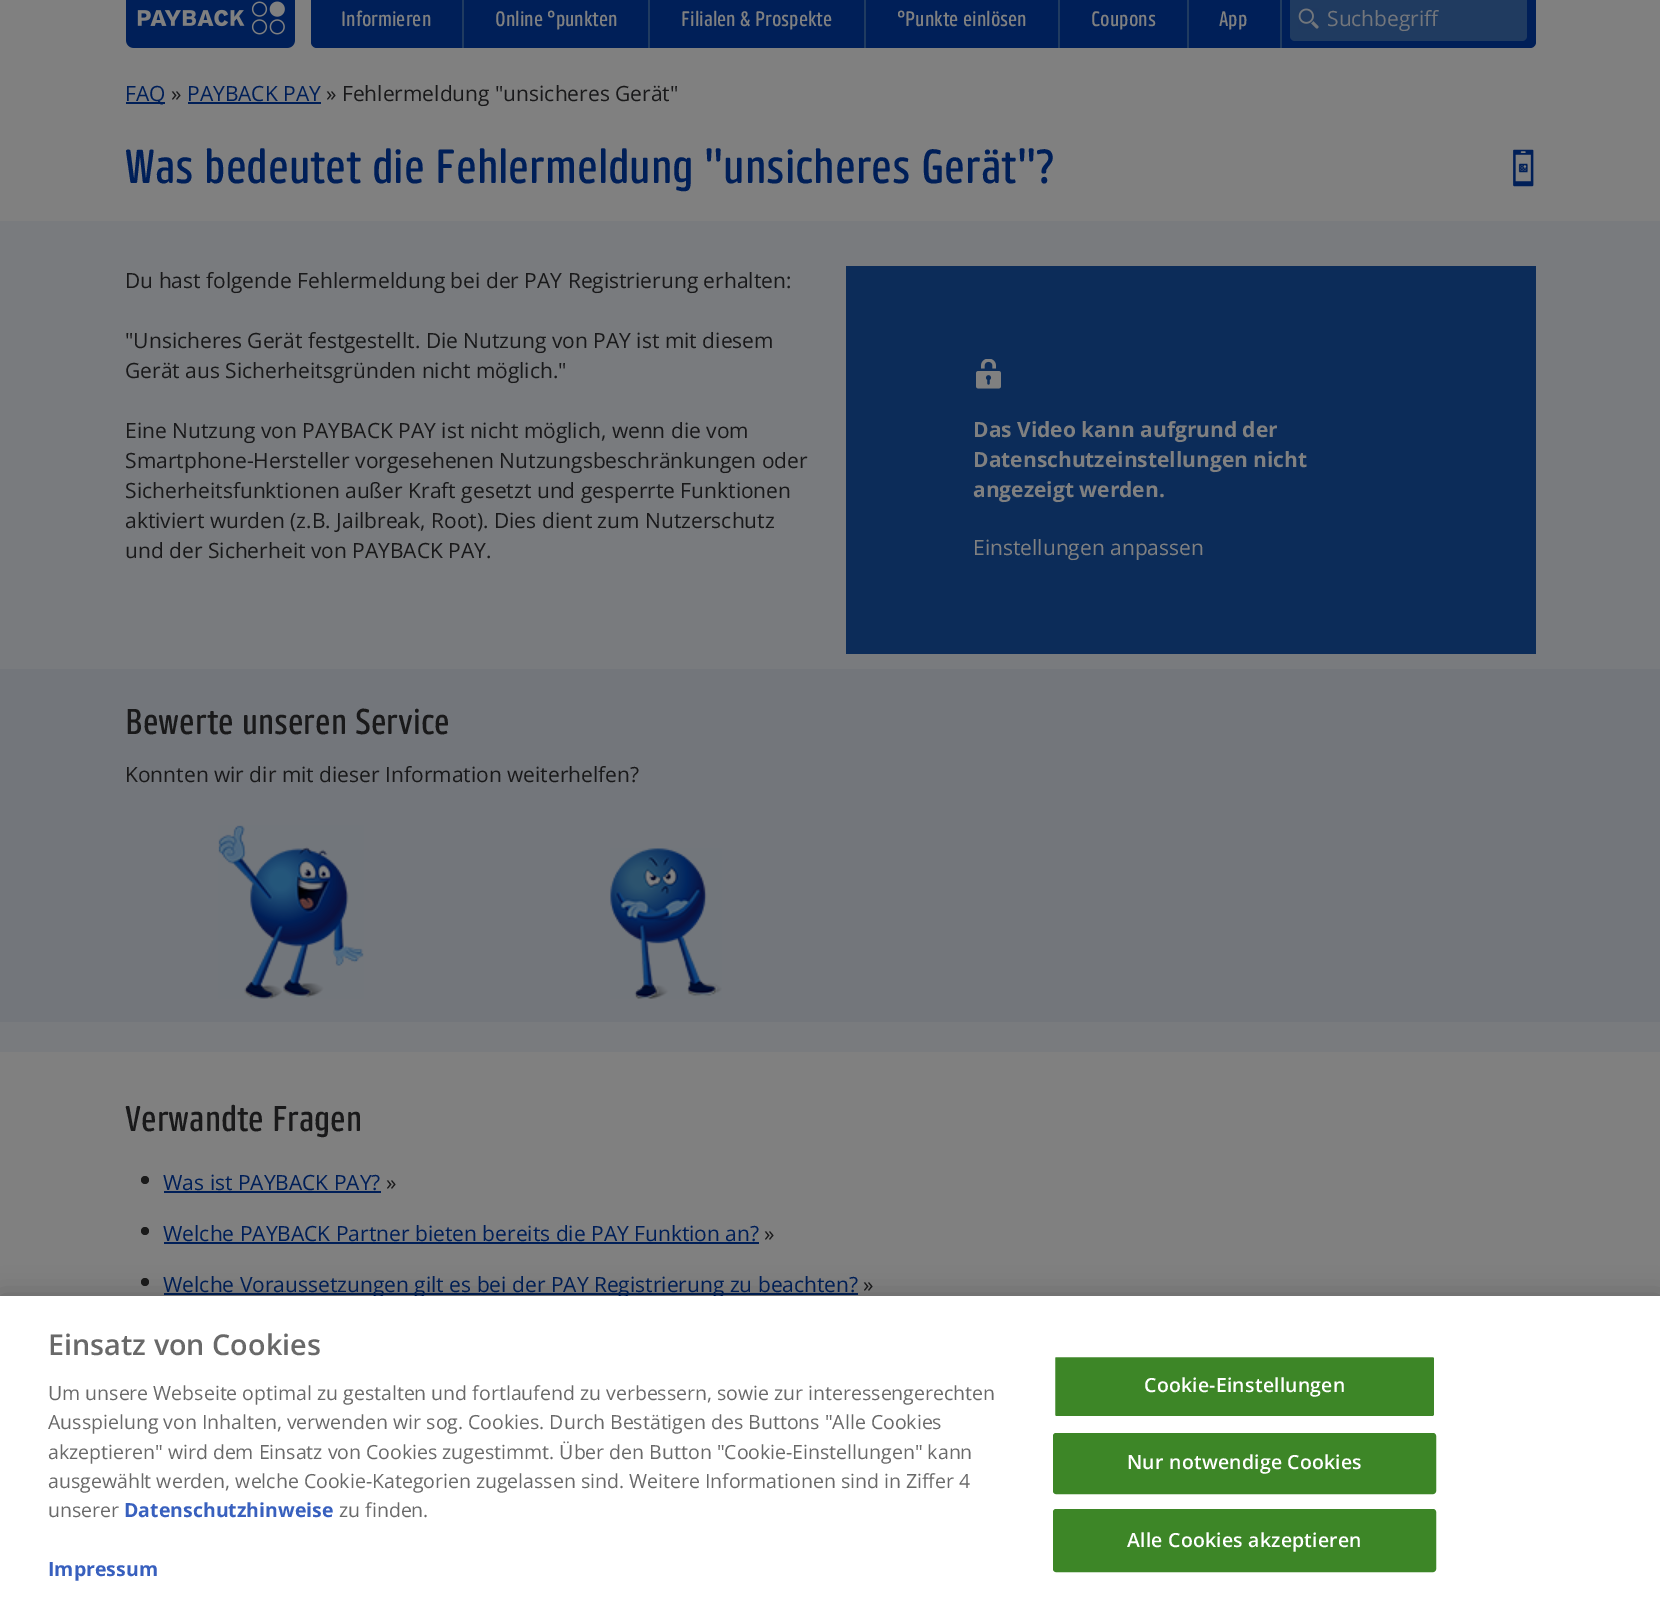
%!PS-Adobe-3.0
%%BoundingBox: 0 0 1660 1598
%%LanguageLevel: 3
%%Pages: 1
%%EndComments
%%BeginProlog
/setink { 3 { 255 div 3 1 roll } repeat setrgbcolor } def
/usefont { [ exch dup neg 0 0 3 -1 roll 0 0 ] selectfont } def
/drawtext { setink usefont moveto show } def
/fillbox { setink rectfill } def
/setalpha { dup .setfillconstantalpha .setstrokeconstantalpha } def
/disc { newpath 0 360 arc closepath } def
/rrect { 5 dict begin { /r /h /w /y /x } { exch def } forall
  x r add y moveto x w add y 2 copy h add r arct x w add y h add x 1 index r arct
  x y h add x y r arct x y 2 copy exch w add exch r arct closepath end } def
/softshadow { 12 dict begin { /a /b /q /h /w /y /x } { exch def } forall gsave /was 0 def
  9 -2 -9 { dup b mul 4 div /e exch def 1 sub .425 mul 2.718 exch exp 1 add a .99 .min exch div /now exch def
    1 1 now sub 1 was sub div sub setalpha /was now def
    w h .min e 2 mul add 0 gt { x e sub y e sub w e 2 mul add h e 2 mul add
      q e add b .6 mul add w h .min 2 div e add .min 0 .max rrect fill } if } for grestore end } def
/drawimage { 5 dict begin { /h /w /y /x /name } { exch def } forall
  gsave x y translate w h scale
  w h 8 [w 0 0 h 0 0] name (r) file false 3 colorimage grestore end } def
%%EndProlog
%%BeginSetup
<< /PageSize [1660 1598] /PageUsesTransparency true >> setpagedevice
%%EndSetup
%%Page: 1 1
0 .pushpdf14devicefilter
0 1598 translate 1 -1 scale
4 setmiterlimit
0 0 1660 1598 115 118 123 fillbox
0 0 1660 221 128 128 128 fillbox
(assets/img1.rgb) 126 0 169 48 drawimage
0 31 88 setink
311 -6 1225 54 6 rrect fill
462 0 2 48 32 59 96 fillbox
(Informieren) 341 26 /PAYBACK-Light 21 128 128 128 drawtext
648 0 2 48 32 59 96 fillbox
(Online °punkten) 495 26 /PAYBACK-Light 21 128 128 128 drawtext
864 0 2 48 32 59 96 fillbox
(Filialen & Prospekte) 681 26 /PAYBACK-Light 21 128 128 128 drawtext
1058 0 2 48 32 59 96 fillbox
(°Punkte einlösen) 897 26 /PAYBACK-Light 21 128 128 128 drawtext
1187 0 2 48 32 59 96 fillbox
(Coupons) 1091 26 /PAYBACK-Light 21 128 128 128 drawtext
1280 0 2 48 32 59 96 fillbox
(App) 1219 26 /PAYBACK-Light 21 128 128 128 drawtext
32 59 96 setink
1290 -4 237 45 5 rrect fill
(assets/img2.rgb) 1298 8 21 21 drawimage
(Suchbegriff) 1327 26 /OpenSans-Regular 21 115 118 123 drawtext
126 102 39 2 0 31 88 fillbox
(FAQ) 125 101 /OpenSans-Regular 21 0 31 88 drawtext
(») 171 101 /OpenSans-Regular 21 25 25 26 drawtext
(PAYBACK PAY) 187 101 /OpenSans-Regular 21 0 31 88 drawtext
188 102 133 2 0 31 88 fillbox
(» Fehlermeldung "unsicheres Gerät") 326 101 /OpenSans-Regular 21 25 25 26 drawtext
(Was bedeutet die Fehlermeldung "unsicheres Gerät"?) 125 183 /PAYBACK-Light 48 0 31 88 drawtext
(assets/img3.rgb) 1513 149 21 38 drawimage
0 221 1660 448 121 123 126 fillbox
(Du hast folgende Fehlermeldung bei der PAY Registrierung erhalten:) 125 288 /OpenSans-Regular 21 25 25 26 drawtext
("Unsicheres Gerät festgestellt. Die Nutzung von PAY ist mit diesem) 125 348 /OpenSans-Regular 21 25 25 26 drawtext
(Gerät aus Sicherheitsgründen nicht möglich.") 125 378 /OpenSans-Regular 21 25 25 26 drawtext
(Eine Nutzung von PAYBACK PAY ist nicht möglich, wenn die vom) 125 438 /OpenSans-Regular 21 25 25 26 drawtext
(Smartphone-Hersteller vorgesehenen Nutzungsbeschränkungen oder) 125 468 /OpenSans-Regular 21 25 25 26 drawtext
(Sicherheitsfunktionen außer Kraft gesetzt und gesperrte Funktionen) 125 498 /OpenSans-Regular 21 25 25 26 drawtext
(aktiviert wurden \(z.B. Jailbreak, Root\). Dies dient zum Nutzerschutz) 125 528 /OpenSans-Regular 21 25 25 26 drawtext
(und der Sicherheit von PAYBACK PAY.) 125 558 /OpenSans-Regular 21 25 25 26 drawtext
846 266 690 388 12 44 89 fillbox
(assets/img4.rgb) 976 359 25 30 drawimage
(Das Video kann aufgrund der) 973 437 /OpenSans-Bold 21 128 128 128 drawtext
(Datenschutzeinstellungen nicht) 973 467 /OpenSans-Bold 21 128 128 128 drawtext
(angezeigt werden.) 973 497 /OpenSans-Bold 21 128 128 128 drawtext
(Einstellungen anpassen) 973 555 /OpenSans-Regular 21 128 128 128 drawtext
(Bewerte unseren Service) 125 734 /PAYBACK-Light 36 25 25 26 drawtext
(Konnten wir dir mit dieser Information weiterhelfen?) 125 782 /OpenSans-Regular 21 25 25 26 drawtext
(assets/img5.rgb) 218 825 146 174 drawimage
(assets/img6.rgb) 610 848 112 151 drawimage
0 1022 1660 30 121 123 126 fillbox
0 1052 1660 244 128 128 128 fillbox
(Verwandte Fragen) 125 1131 /PAYBACK-Light 36 25 25 26 drawtext
26 26 26 setink
145 1180 4 disc fill
(Was ist PAYBACK PAY?) 163 1190 /OpenSans-Regular 21 0 31 88 drawtext
164 1191 217 2 0 31 88 fillbox
(») 386 1190 /OpenSans-Regular 21 25 25 26 drawtext
26 26 26 setink
145 1231 4 disc fill
(Welche PAYBACK Partner bieten bereits die PAY Funktion an?) 163 1241 /OpenSans-Regular 21 0 31 88 drawtext
164 1242 595 2 0 31 88 fillbox
(») 764 1241 /OpenSans-Regular 21 25 25 26 drawtext
26 26 26 setink
145 1282 4 disc fill
164 1293 694 2 0 31 88 fillbox
(Welche Voraussetzungen gilt es bei der PAY Registrierung zu beachten?) 163 1292 /OpenSans-Regular 21 0 31 88 drawtext
(») 863 1292 /OpenSans-Regular 21 25 25 26 drawtext
0 0 0 setink
0 1296 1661 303 0 13.5 0.2 softshadow
0 1296 1660 302 255 255 255 fillbox
(Einsatz von Cookies) 48 1355 /OpenSans-SemiBold 28.75 105 105 105 drawtext
(Um unsere Webseite optimal zu gestalten und fortlaufend zu verbessern, sowie zur interessengerechten) 48 1400 /OpenSans-Regular 19.5 105 105 105 drawtext
(Ausspielung von Inhalten, verwenden wir sog. Cookies. Durch Bestätigen des Buttons "Alle Cookies) 48 1429 /OpenSans-Regular 19.5 105 105 105 drawtext
(akzeptieren" wird dem Einsatz von Cookies zugestimmt. Über den Button "Cookie-Einstellungen" kann) 48 1459 /OpenSans-Regular 19.5 105 105 105 drawtext
(ausgewählt werden, welche Cookie-Kategorien zugelassen sind. Weitere Informationen sind in Ziffer 4) 48 1488 /OpenSans-Regular 19.5 105 105 105 drawtext
(unserer) 48 1517 /OpenSans-Regular 19.5 105 105 105 drawtext
(Datenschutzhinweise) 124 1517 /OpenSans-Bold 19.5 56 96 190 drawtext
(zu finden.) 339 1517 /OpenSans-Regular 19.5 105 105 105 drawtext
(Impressum) 48 1576 /OpenSans-Bold 19.5 56 96 190 drawtext
61 134 39 setink
1054 1356 381 61 2 rrect gsave fill grestore
255 255 255 setink
2 setlinewidth
stroke
/OpenSans-SemiBold 19.5 usefont
1144 1392 moveto 0.2 0 (Cookie-Einstellungen) ashow
61 134 39 setink
1054 1434 381 59 2 rrect gsave fill grestore
stroke
255 255 255 setink
1127 1469 moveto 0.2 0 (Nur notwendige Cookies) ashow
61 134 39 setink
1054 1510 381 61 2 rrect gsave fill grestore
stroke
255 255 255 setink
1127 1547 moveto 0.2 0 (Alle Cookies akzeptieren) ashow
.poppdf14devicefilter showpage
%%EOF
